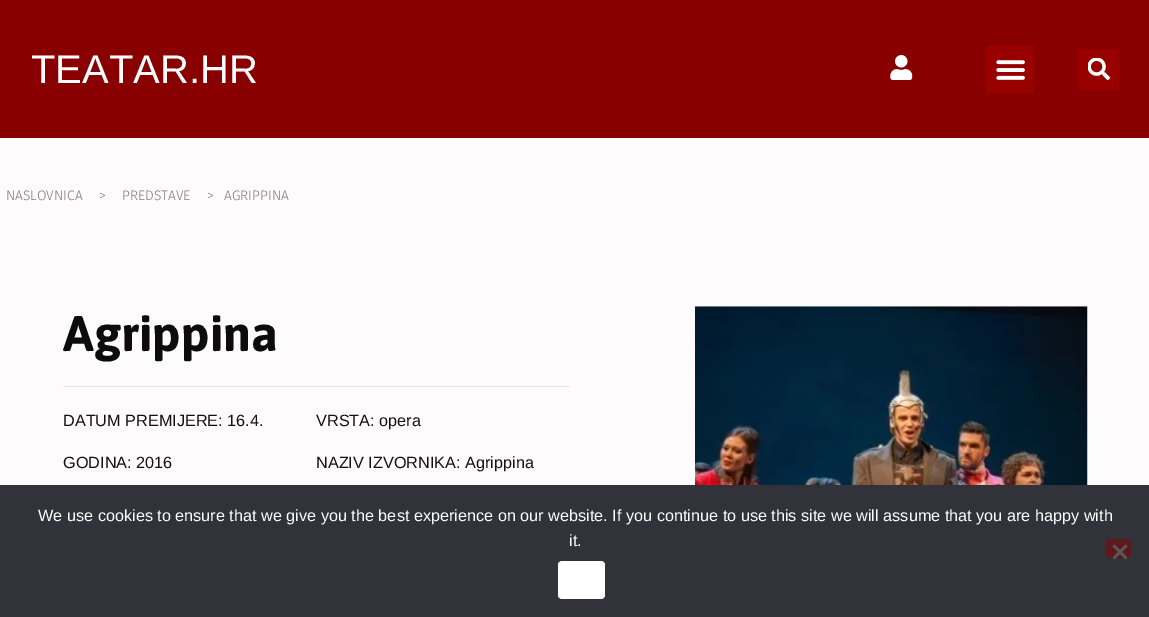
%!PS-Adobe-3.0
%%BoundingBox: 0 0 1149 617
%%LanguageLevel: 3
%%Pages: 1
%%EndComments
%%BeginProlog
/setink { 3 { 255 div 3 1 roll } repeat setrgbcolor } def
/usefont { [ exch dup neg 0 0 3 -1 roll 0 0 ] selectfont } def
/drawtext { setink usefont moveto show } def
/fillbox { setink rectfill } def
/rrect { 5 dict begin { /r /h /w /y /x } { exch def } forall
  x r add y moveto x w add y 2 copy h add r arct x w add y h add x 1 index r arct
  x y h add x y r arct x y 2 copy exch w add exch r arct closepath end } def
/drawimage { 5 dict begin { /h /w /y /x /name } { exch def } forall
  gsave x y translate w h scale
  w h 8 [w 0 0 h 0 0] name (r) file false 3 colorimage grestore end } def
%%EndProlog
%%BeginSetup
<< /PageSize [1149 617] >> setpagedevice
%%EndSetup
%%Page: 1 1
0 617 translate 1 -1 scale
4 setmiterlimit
0 0 1149 617 253 251 252 fillbox
0 0 1149 138 137 0 0 fillbox
(TEATAR.HR) 31 83 /LiberationSans-Regular 40 255 255 255 drawtext
(assets/img1.rgb) 890 55 23 25 drawimage
986 45 48 48 153 0 0 fillbox
(assets/img2.rgb) 996 60 29 20 drawimage
1078 49 41 41 4 rrect fill
(assets/img3.rgb) 1088 58 22 22 drawimage
(NASLOVNICA) 6 200 /FiraSans-Light 13.75 122 122 122 drawtext
(>) 99 200 /FiraSans-Light 13.75 122 122 122 drawtext
(PREDSTAVE) 122 200 /FiraSans-Light 13.75 122 122 122 drawtext
(>) 207 200 /FiraSans-Light 13.75 122 122 122 drawtext
(AGRIPPINA) 224 200 /FiraSans-Light 13.75 122 122 122 drawtext
(Agrippina) 63 351 /Asap-Bold 50 12 12 12 drawtext
63 386 507 1 229 227 228 fillbox
(DATUM PREMIJERE: 16.4.) 63 426 /LiberationSans-Regular 16.25 18 18 18 drawtext
(GODINA: 2016) 63 468 /LiberationSans-Regular 16.25 18 18 18 drawtext
(VRSTA: opera) 316 426 /LiberationSans-Regular 16.25 18 18 18 drawtext
(NAZIV IZVORNIKA: Agrippina) 316 468 /LiberationSans-Regular 16.25 18 18 18 drawtext
(assets/img4.rgb) 695 306 393 179 drawimage
0 485 1149 132 50 50 58 fillbox
(We use cookies to ensure that we give you the best experience on our website. If you continue to use this site we will assume that you are happy with) 38 521 /LiberationSans-Regular 16.25 255 255 255 drawtext
(it.) 569 546 /LiberationSans-Regular 16.25 255 255 255 drawtext
94 25 29 setink
1106 539 25 19 4 rrect fill
89 89 93 setink
1125.5 544.5 moveto 1127.5 546 lineto 1114.5 559.5 lineto 1112.5 557.5 lineto closepath fill
1112.5 546 moveto 1114.5 544.5 lineto 1127.5 557.5 lineto 1125.5 559.5 lineto closepath fill
255 255 255 setink
558 561 47 38 4 rrect fill
showpage
%%EOF
